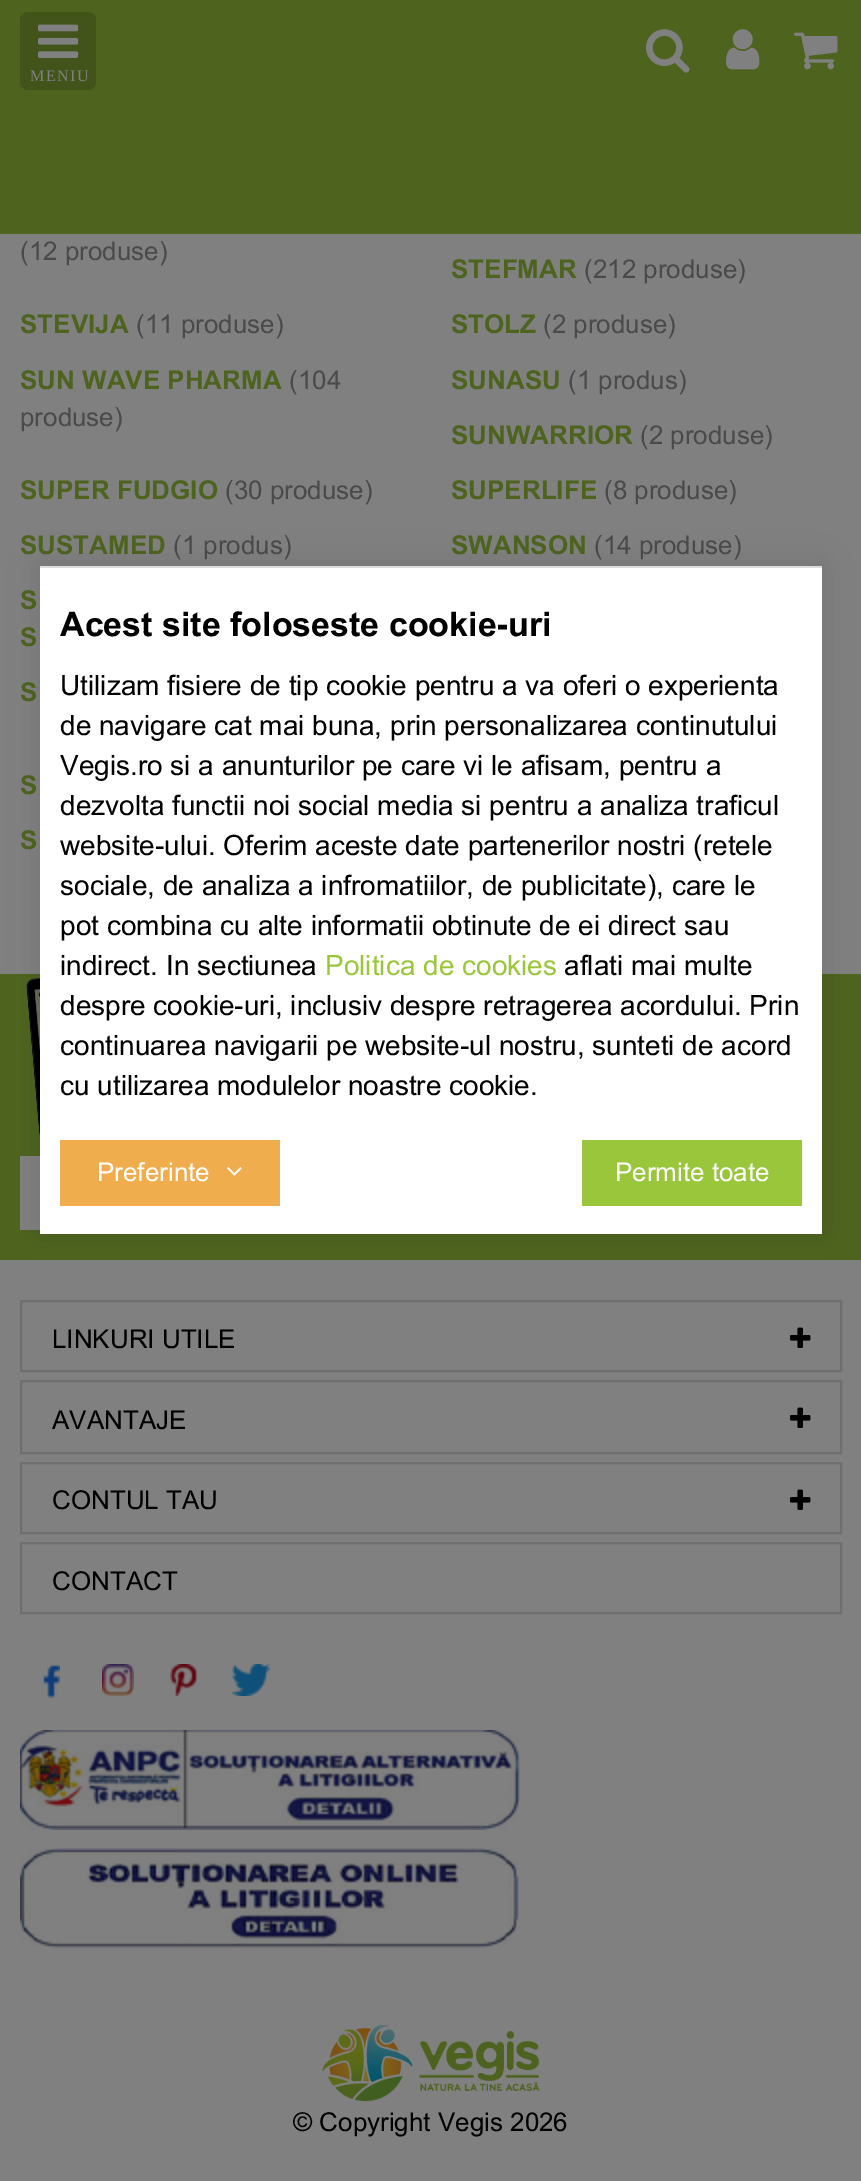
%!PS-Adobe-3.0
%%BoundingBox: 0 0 861 2181
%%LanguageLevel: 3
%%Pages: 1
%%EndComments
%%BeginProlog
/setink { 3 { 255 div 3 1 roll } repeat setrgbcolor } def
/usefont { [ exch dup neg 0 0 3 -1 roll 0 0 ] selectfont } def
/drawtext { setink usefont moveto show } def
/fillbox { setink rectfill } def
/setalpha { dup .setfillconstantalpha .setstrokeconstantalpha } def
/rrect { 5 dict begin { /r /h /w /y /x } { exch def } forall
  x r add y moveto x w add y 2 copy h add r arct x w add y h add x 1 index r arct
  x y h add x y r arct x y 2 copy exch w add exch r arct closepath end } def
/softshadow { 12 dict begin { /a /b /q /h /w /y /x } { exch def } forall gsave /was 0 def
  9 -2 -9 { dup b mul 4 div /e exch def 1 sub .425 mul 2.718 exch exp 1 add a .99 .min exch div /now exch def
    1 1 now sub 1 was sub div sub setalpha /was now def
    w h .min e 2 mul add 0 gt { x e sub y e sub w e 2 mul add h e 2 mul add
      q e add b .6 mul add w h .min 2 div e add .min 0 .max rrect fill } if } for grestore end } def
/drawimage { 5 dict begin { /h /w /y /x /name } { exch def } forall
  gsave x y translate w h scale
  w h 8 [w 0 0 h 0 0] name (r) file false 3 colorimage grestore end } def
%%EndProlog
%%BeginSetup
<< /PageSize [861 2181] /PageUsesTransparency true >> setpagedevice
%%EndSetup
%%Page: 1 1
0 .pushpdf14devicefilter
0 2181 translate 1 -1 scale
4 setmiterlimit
0 0 861 2181 128 128 128 fillbox
0 0 861 234 77 99 30 fillbox
(assets/img1.rgb) 646 29 44 44 drawimage
(assets/img2.rgb) 726 29 34 41 drawimage
(assets/img3.rgb) 794 32 44 38 drawimage
66 84 26 setink
20 12 76 78 8 rrect fill
(assets/img4.rgb) 38 24 41 34 drawimage
/LiberationSerif-Regular 16 usefont
128 128 128 setink
30 81 moveto 1.5 0 (MENIU) ashow
(\(12 produse\)) 20 260 /Arial-Regular 26 74 74 74 drawtext
(STEFMAR) 451 278 /Arial-Bold 26 77 99 30 drawtext
(\(212 produse\)) 584 278 /Arial-Regular 26 74 74 74 drawtext
(STEVIJA) 20 333 /Arial-Bold 26 77 99 30 drawtext
(\(11 produse\)) 136 333 /Arial-Regular 26 74 74 74 drawtext
(STOLZ) 451 333 /Arial-Bold 26 77 99 30 drawtext
(\(2 produse\)) 543 333 /Arial-Regular 26 74 74 74 drawtext
(SUN WAVE PHARMA) 20 389 /Arial-Bold 26 77 99 30 drawtext
(\(104) 289 389 /Arial-Regular 26 74 74 74 drawtext
(produse\)) 20 426 /Arial-Regular 26 74 74 74 drawtext
(SUNASU) 451 389 /Arial-Bold 26 77 99 30 drawtext
(\(1 produs\)) 568 389 /Arial-Regular 26 74 74 74 drawtext
(SUNWARRIOR) 451 444 /Arial-Bold 26 77 99 30 drawtext
(\(2 produse\)) 640 444 /Arial-Regular 26 74 74 74 drawtext
(SUPER FUDGIO) 20 499 /Arial-Bold 26 77 99 30 drawtext
(\(30 produse\)) 225 499 /Arial-Regular 26 74 74 74 drawtext
(SUPERLIFE) 451 499 /Arial-Bold 26 77 99 30 drawtext
(\(8 produse\)) 604 499 /Arial-Regular 26 74 74 74 drawtext
(SUSTAMED) 20 554 /Arial-Bold 26 77 99 30 drawtext
(\(1 produs\)) 173 554 /Arial-Regular 26 74 74 74 drawtext
(SWANSON) 451 554 /Arial-Bold 26 77 99 30 drawtext
(\(14 produse\)) 594 554 /Arial-Regular 26 74 74 74 drawtext
(S) 20 609 /Arial-Bold 26 77 99 30 drawtext
(S) 20 646 /Arial-Bold 26 77 99 30 drawtext
(S) 20 701 /Arial-Bold 26 77 99 30 drawtext
(S) 20 794 /Arial-Bold 26 77 99 30 drawtext
(S) 20 849 /Arial-Bold 26 77 99 30 drawtext
0 974 861 286 77 99 30 fillbox
(assets/img5.rgb) 26 978 14 158 drawimage
20 1156 20 74 128 128 128 fillbox
111 111 111 setink
2 setlinewidth
21 1301 820 70 rectstroke
(LINKURI UTILE) 52 1348 /Arial-Regular 26 0 0 0 drawtext
(assets/img6.rgb) 790 1327 21 21 drawimage
111 111 111 setink
21 1381 820 72 rectstroke
(AVANTAJE) 52 1429 /Arial-Regular 26 0 0 0 drawtext
(assets/img6.rgb) 790 1407 21 21 drawimage
111 111 111 setink
21 1463 820 70 rectstroke
(CONTUL TAU) 52 1509 /Arial-Regular 26 0 0 0 drawtext
(assets/img6.rgb) 790 1489 21 21 drawimage
111 111 111 setink
21 1543 820 70 rectstroke
(CONTACT) 52 1590 /Arial-Regular 26 0 0 0 drawtext
(assets/img7.rgb) 43 1664 17 34 drawimage
(assets/img8.rgb) 102 1664 32 32 drawimage
(assets/img9.rgb) 170 1664 28 32 drawimage
(assets/img10.rgb) 232 1664 38 32 drawimage
(assets/img11.rgb) 20 1730 500 100 drawimage
(assets/img12.rgb) 20 1848 499 100 drawimage
(assets/img13.rgb) 322 2025 218 77 drawimage
(© Copyright Vegis 2026) 293 2131 /Arial-Regular 26 0 0 0 drawtext
40 564 782 668 0 15 0.1 softshadow
40 568 782 666 255 255 255 fillbox
40 566 782 2 221 221 221 fillbox
(Acest site foloseste cookie-uri) 60 636 /Arial-Bold 34 0 0 0 drawtext
(Utilizam fisiere de tip cookie pentru a va oferi o experienta) 60 695 /Arial-Regular 28 0 0 0 drawtext
(de navigare cat mai buna, prin personalizarea continutului) 60 735 /Arial-Regular 28 0 0 0 drawtext
(Vegis.ro si a anunturilor pe care vi le afisam, pentru a) 60 775 /Arial-Regular 28 0 0 0 drawtext
(dezvolta functii noi social media si pentru a analiza traficul) 60 815 /Arial-Regular 28 0 0 0 drawtext
(website-ului. Oferim aceste date partenerilor nostri \(retele) 60 855 /Arial-Regular 28 0 0 0 drawtext
(sociale, de analiza a infromatiilor, de publicitate\), care le) 60 895 /Arial-Regular 28 0 0 0 drawtext
(pot combina cu alte informatii obtinute de ei direct sau) 60 935 /Arial-Regular 28 0 0 0 drawtext
(indirect. In sectiunea) 60 975 /Arial-Regular 28 0 0 0 drawtext
(Politica de cookies) 325 975 /Arial-Regular 28 154 198 60 drawtext
(aflati mai multe) 564 975 /Arial-Regular 28 0 0 0 drawtext
(despre cookie-uri, inclusiv despre retragerea acordului. Prin) 60 1015 /Arial-Regular 28 0 0 0 drawtext
(continuarea navigarii pe website-ul nostru, sunteti de acord) 60 1055 /Arial-Regular 28 0 0 0 drawtext
(cu utilizarea modulelor noastre cookie.) 60 1095 /Arial-Regular 28 0 0 0 drawtext
60 1140 220 66 240 173 78 fillbox
(Preferinte) 97 1181 /Arial-Regular 26 255 255 255 drawtext
(assets/img14.rgb) 227 1167 15 9 drawimage
582 1140 220 66 154 198 60 fillbox
(Permite toate) 615 1181 /Arial-Regular 26 255 255 255 drawtext
.poppdf14devicefilter showpage
%%EOF
